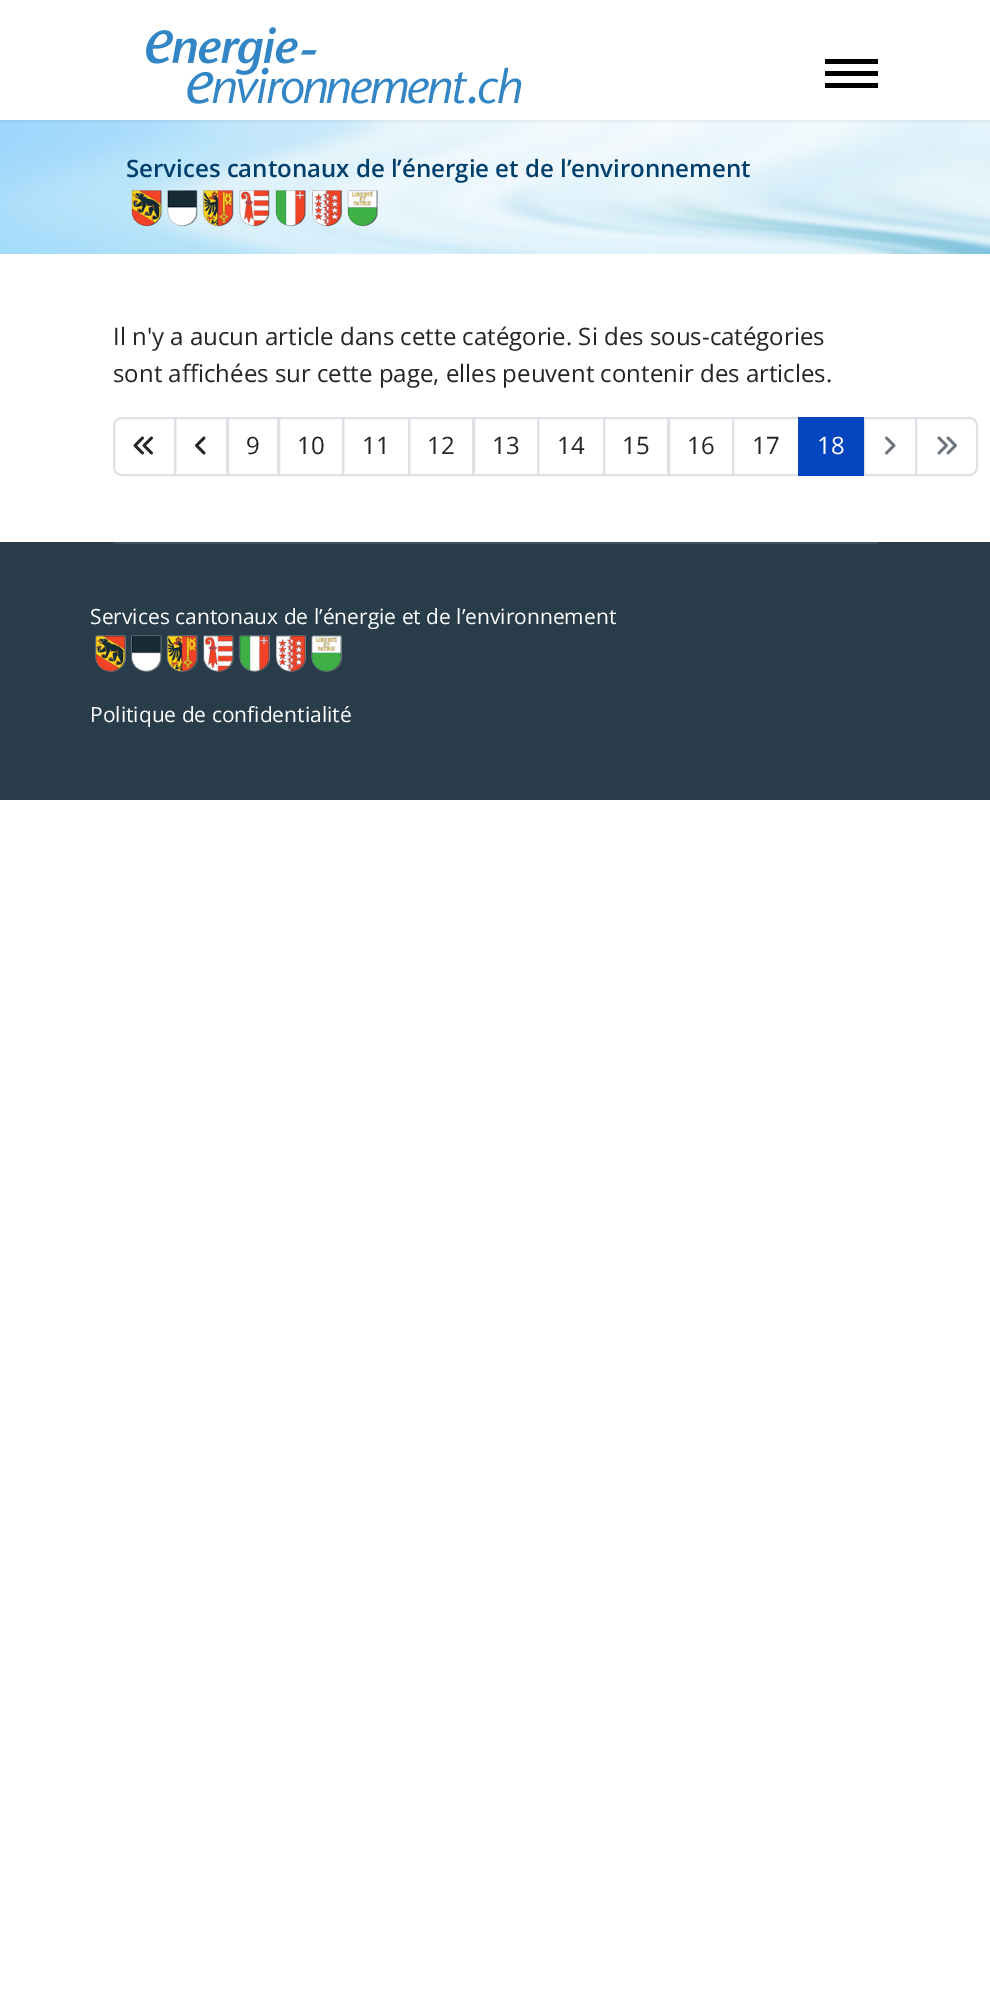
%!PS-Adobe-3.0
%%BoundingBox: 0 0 990 2009
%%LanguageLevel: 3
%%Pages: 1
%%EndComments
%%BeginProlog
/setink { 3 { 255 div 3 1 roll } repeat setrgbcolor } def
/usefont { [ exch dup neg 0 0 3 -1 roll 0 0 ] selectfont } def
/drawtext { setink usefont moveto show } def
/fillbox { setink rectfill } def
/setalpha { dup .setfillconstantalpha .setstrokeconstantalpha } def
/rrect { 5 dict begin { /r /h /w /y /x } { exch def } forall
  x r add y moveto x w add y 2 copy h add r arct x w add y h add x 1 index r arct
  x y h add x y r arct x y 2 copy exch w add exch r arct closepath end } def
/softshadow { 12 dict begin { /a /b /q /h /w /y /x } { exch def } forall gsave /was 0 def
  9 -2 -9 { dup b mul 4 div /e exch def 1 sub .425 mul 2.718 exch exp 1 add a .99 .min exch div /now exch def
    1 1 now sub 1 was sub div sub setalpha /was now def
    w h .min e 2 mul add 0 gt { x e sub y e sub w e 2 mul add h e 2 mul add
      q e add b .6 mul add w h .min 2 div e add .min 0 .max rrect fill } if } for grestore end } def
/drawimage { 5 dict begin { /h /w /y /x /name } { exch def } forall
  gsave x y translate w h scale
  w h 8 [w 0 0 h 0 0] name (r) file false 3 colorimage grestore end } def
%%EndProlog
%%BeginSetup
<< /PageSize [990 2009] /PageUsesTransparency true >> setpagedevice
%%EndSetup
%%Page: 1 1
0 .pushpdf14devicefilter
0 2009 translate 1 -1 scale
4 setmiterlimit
0 0 990 2009 255 255 255 fillbox
(assets/img2.rgb) 0 120 990 134 drawimage
gsave
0 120 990 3 rectclip
0 0 0 setink
0 0 990 120 0 3 0.1 softshadow
grestore
(assets/img1.rgb) 146 27 376 77 drawimage
825 59 53 5 0 0 0 fillbox
825 71 53 5 0 0 0 fillbox
825 83 53 5 0 0 0 fillbox
(Services cantonaux de l’énergie et de l’environnement) 126 177 /OpenSans-SemiBold 24 0 63 107 drawtext
(assets/img3.rgb) 131 190 247 37 drawimage
(Il n'y a aucun article dans cette catégorie. Si des sous-catégories) 113 345 /OpenSans-Regular 24 37 37 37 drawtext
(sont affichées sur cette page, elles peuvent contenir des articles.) 113 382 /OpenSans-Regular 24 37 37 37 drawtext
222 226 230 setink
2 setlinewidth
122 418 moveto 175 418 lineto 175 475 lineto 122 475 lineto 117.5 475 114 471.5 114 467 curveto 114 426 lineto 114 421.5 117.5 418 122 418 curveto closepath stroke
(assets/img4.rgb) 133 436 20 19 drawimage
175 418 52 57 rectstroke
(assets/img5.rgb) 195 436 11 19 drawimage
228 418 50 57 rectstroke
(9) 246 454 /OpenSans-Regular 24 37 37 37 drawtext
222 226 230 setink
279 418 64 57 rectstroke
(10) 297 454 /OpenSans-Regular 24 37 37 37 drawtext
222 226 230 setink
343 418 66 57 rectstroke
(11) 362 454 /OpenSans-Regular 24 37 37 37 drawtext
222 226 230 setink
409 418 64 57 rectstroke
(12) 427 454 /OpenSans-Regular 24 37 37 37 drawtext
222 226 230 setink
474 418 64 57 rectstroke
(13) 492 454 /OpenSans-Regular 24 37 37 37 drawtext
222 226 230 setink
538 418 66 57 rectstroke
(14) 557 454 /OpenSans-Regular 24 37 37 37 drawtext
222 226 230 setink
604 418 64 57 rectstroke
(15) 622 454 /OpenSans-Regular 24 37 37 37 drawtext
222 226 230 setink
669 418 64 57 rectstroke
(16) 687 454 /OpenSans-Regular 24 37 37 37 drawtext
222 226 230 setink
733 418 66 57 rectstroke
(17) 752 454 /OpenSans-Regular 24 37 37 37 drawtext
222 226 230 setink
864 418 52 57 rectstroke
798 417 66 59 3 69 191 fillbox
(18) 817 454 /OpenSans-Regular 24 255 255 255 drawtext
(assets/img6.rgb) 885 436 11 19 drawimage
916 418 moveto 969 418 lineto 973.5 418 977 421.5 977 426 curveto 977 467 lineto 977 471.5 973.5 475 969 475 curveto 916 475 lineto closepath gsave fill grestore
222 226 230 setink
stroke
(assets/img7.rgb) 937 436 20 19 drawimage
0 542 990 258 40 60 74 fillbox
113 542 765 2 62 80 92 fillbox
(Services cantonaux de l’énergie et de l’environnement) 90 624 /OpenSans-Regular 21 255 255 255 drawtext
(assets/img8.rgb) 95 635 247 37 drawimage
(Politique de confidentialité) 90 722 /OpenSans-Regular 21 255 255 255 drawtext
.poppdf14devicefilter showpage
%%EOF
